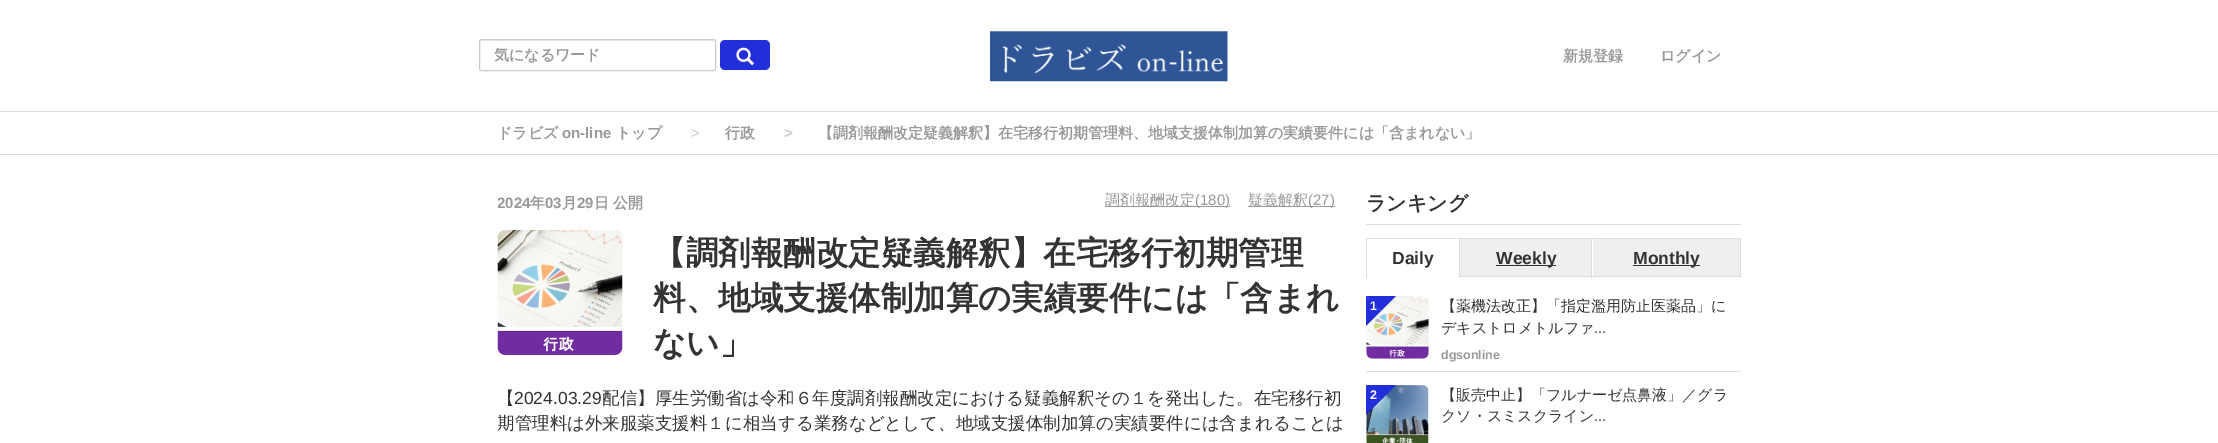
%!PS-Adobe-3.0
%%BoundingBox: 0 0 2218 443
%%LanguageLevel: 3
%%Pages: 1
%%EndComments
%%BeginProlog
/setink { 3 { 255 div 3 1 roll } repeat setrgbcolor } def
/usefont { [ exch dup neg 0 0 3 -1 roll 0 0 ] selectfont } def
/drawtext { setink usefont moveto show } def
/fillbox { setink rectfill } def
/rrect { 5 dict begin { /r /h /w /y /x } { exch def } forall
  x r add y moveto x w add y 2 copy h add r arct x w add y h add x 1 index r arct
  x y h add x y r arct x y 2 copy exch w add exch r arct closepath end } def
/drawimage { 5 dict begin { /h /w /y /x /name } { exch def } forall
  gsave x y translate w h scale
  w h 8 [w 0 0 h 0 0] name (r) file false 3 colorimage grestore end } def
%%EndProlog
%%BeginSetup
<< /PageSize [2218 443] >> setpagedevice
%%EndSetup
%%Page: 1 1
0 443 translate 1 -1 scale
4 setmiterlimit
0 0 2218 443 255 255 255 fillbox
0 111 2218 1 221 221 221 fillbox
236 236 236 setink
481 41 moveto 714 41 lineto 715 42 lineto 715 40 lineto 481 40 lineto 480 40 480 41 480 42 curveto closepath fill
204 204 204 setink
479.5 39.5 236 31 2 rrect stroke
(気になるワード) 494 60 /WenQuanYiZenHei-Bold 15 153 153 153 drawtext
33 46 218 setink
720 40 50 30 5 rrect fill
(assets/img1.rgb) 736 47 18 18 drawimage
(assets/img2.rgb) 990 31 238 51 drawimage
(新規登録) 1563 61 /WenQuanYiZenHei-Bold 15 153 153 153 drawtext
(ログイン) 1660 61 /WenQuanYiZenHei-Bold 15 153 153 153 drawtext
0 154 2218 1 221 221 221 fillbox
(ドラビズ) 497 138 /WenQuanYiZenHei-Bold 15 153 153 153 drawtext
(on-line) 562 138 /LiberationSans-Bold 15 153 153 153 drawtext
(トップ) 616 138 /WenQuanYiZenHei-Bold 15 153 153 153 drawtext
(>) 691 138 /LiberationSans-Regular 15 204 204 204 drawtext
(行政) 725 138 /WenQuanYiZenHei-Bold 15 153 153 153 drawtext
(>) 784 138 /LiberationSans-Bold 15 204 204 204 drawtext
(【調剤報酬改定疑義解釈】在宅移行初期管理料、地域支援体制加算の実績要件には「含まれない」) 818 138 /WenQuanYiZenHei-Bold 15 153 153 153 drawtext
gsave
498 186 850 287 rectclip
(2024) 497 208 /LiberationSans-Bold 15 153 153 153 drawtext
grestore
(年) 530 208 /WenQuanYiZenHei-Bold 15 153 153 153 drawtext
(03) 545 208 /LiberationSans-Bold 15 153 153 153 drawtext
(月) 562 208 /WenQuanYiZenHei-Bold 15 153 153 153 drawtext
(29) 577 208 /LiberationSans-Bold 15 153 153 153 drawtext
(日) 594 208 /WenQuanYiZenHei-Bold 15 153 153 153 drawtext
(公開) 613 208 /WenQuanYiZenHei-Bold 15 153 153 153 drawtext
1105 206 125 1 153 153 153 fillbox
(調剤報酬改定) 1105 205 /WenQuanYiZenHei-Medium 15 153 153 153 drawtext
(\(180\)) 1195 205 /LiberationSans-Regular 15 153 153 153 drawtext
1248 206 87 1 153 153 153 fillbox
(疑義解釈) 1248 205 /WenQuanYiZenHei-Medium 15 153 153 153 drawtext
(\(27\)) 1308 205 /LiberationSans-Regular 15 153 153 153 drawtext
(assets/img3.rgb) 497 230 126 125 drawimage
(【調剤報酬改定疑義解釈】在宅移行初期管理) 653 264 /WenQuanYiZenHei-Bold 32.5 51 51 51 drawtext
(料、地域支援体制加算の実績要件には「含まれ) 653 309 /WenQuanYiZenHei-Bold 32.5 51 51 51 drawtext
(ない」) 653 354 /WenQuanYiZenHei-Bold 32.5 51 51 51 drawtext
(【) 497 404 /WenQuanYiZenHei-Medium 17.5 51 51 51 drawtext
(2024.03.29) 514 404 /LiberationSans-Regular 17.5 51 51 51 drawtext
(配信】厚生労働省は令和６年度調剤報酬改定における疑義解釈その１を発出した。在宅移行初) 602 404 /WenQuanYiZenHei-Medium 17.5 51 51 51 drawtext
gsave
498 186 850 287 rectclip
(期管理料は外来服薬支援料１に相当する業務などとして、地域支援体制加算の実績要件には含まれることは) 497 429 /WenQuanYiZenHei-Medium 17.5 51 51 51 drawtext
grestore
(ランキング) 1366 210 /WenQuanYiZenHei-Bold 20 51 51 51 drawtext
1366 224 375 1 221 221 221 fillbox
1591 238 150 1 221 221 221 fillbox
1740 238 1 40 221 221 221 fillbox
1591 276 150 1 221 221 221 fillbox
1591 238 1 40 221 221 221 fillbox
1459 238 134 1 221 221 221 fillbox
1459 276 134 1 221 221 221 fillbox
1459 238 1 40 221 221 221 fillbox
1366 238 94 1 221 221 221 fillbox
1366 238 1 40 221 221 221 fillbox
(Daily) 1392 264 /LiberationSans-Bold 17.5 51 51 51 drawtext
1460 239 131 37 239 239 239 fillbox
1496 265 60 1 51 51 51 fillbox
(Weekly) 1496 264 /LiberationSans-Bold 17.5 51 51 51 drawtext
1593 239 147 37 239 239 239 fillbox
1633 265 67 1 51 51 51 fillbox
(Monthly) 1633 264 /LiberationSans-Bold 17.5 51 51 51 drawtext
1366 371 375 1 221 221 221 fillbox
(assets/img4.rgb) 1366 296 63 63 drawimage
(【薬機法改正】「指定濫用防止医薬品」に) 1441 311 /WenQuanYiZenHei-Medium 15 51 51 51 drawtext
(デキストロメトルファ) 1441 333 /WenQuanYiZenHei-Medium 15 51 51 51 drawtext
(...) 1594 333 /LiberationSans-Regular 15 51 51 51 drawtext
(dgsonline) 1441 359 /LiberationSans-Bold 12.5 153 153 153 drawtext
33 46 218 setink
1366 296 moveto 1396 296 lineto 1381 311 lineto closepath fill
1366 326 moveto 1366 296 lineto 1381 311 lineto closepath fill
(1) 1370 310 /LiberationSans-Bold 12.5 255 255 255 drawtext
(assets/img5.rgb) 1366 385 63 58 drawimage
(【販売中止】「フルナーゼ点鼻液」／グラ) 1441 400 /WenQuanYiZenHei-Medium 15 51 51 51 drawtext
(クソ・スミスクライン) 1441 421 /WenQuanYiZenHei-Medium 15 51 51 51 drawtext
(...) 1594 421 /LiberationSans-Regular 15 51 51 51 drawtext
33 46 218 setink
1366 385 moveto 1396 385 lineto 1381 400 lineto closepath fill
1366 415 moveto 1366 385 lineto 1381 400 lineto closepath fill
(2) 1370 399 /LiberationSans-Bold 12.5 255 255 255 drawtext
showpage
%%EOF
